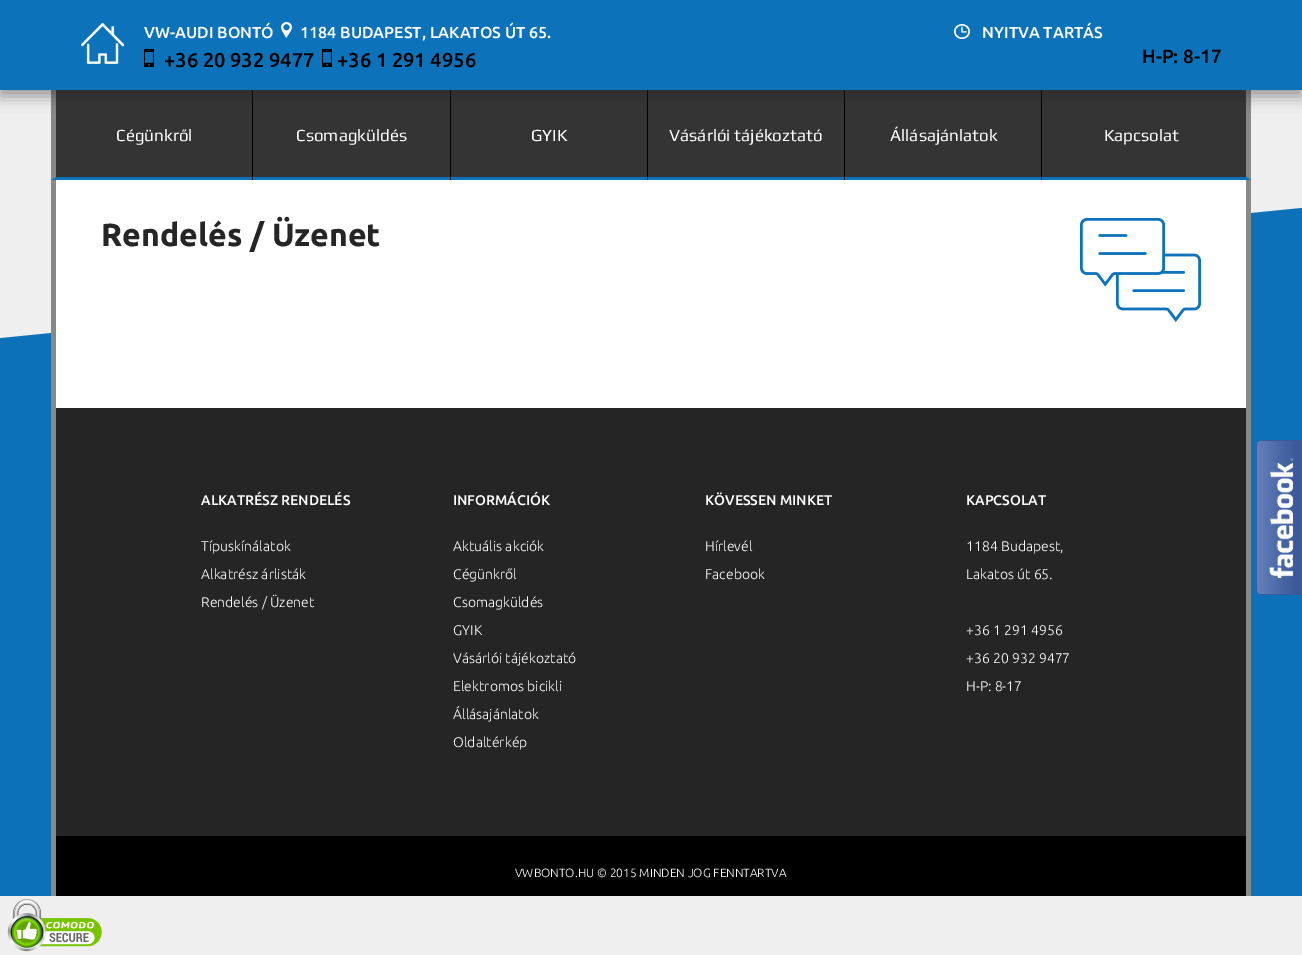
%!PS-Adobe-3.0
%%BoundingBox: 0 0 1302 955
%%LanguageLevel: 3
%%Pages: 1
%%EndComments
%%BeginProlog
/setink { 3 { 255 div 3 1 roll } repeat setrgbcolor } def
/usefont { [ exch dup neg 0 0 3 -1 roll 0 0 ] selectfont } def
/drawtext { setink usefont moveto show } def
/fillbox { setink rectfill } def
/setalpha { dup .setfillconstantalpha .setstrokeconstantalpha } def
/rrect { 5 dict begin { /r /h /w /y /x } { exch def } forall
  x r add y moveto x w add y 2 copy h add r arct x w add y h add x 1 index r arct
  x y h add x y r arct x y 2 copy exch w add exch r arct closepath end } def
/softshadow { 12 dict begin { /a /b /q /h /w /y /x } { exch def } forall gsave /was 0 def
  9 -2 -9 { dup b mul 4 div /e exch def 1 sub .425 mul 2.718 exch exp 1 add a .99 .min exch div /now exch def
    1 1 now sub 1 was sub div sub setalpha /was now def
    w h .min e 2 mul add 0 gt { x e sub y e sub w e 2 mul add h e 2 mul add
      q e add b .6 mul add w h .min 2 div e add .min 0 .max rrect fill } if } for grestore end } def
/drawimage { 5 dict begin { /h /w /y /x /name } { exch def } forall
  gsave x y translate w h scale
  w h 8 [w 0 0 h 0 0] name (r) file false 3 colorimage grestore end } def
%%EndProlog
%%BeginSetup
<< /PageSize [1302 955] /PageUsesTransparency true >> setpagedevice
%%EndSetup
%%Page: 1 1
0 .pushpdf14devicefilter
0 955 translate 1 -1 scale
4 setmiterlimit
0 0 1302 955 239 239 239 fillbox
51 90 1200 90 52 52 52 fillbox
136 136 136 setink
1251 90 moveto 1251 180 lineto 1246 177 lineto 1246 90 lineto closepath fill
12 114 185 setink
1251 180 moveto 51 180 lineto 56 177 lineto 1246 177 lineto closepath fill
136 136 136 setink
51 180 moveto 51 90 lineto 56 90 lineto 56 177 lineto closepath fill
252 90 1 90 0 0 0 fillbox
450 90 1 90 0 0 0 fillbox
647 90 1 90 0 0 0 fillbox
844 90 1 90 0 0 0 fillbox
1041 90 1 90 0 0 0 fillbox
38 38 38 setink
0 6 1302 90 0 7.5 0.45 softshadow
0 0 1302 90 12 114 185 fillbox
(assets/img1.rgb) 81 23 43 41 drawimage
(VW-AUDI BONTÓ) 144 38 /Ubuntu-Medium 16 255 255 255 drawtext
(assets/img2.rgb) 281 22 11 16 drawimage
(1184 BUDAPEST, LAKATOS ÚT 65.) 300 38 /Ubuntu-Medium 16 255 255 255 drawtext
(assets/img3.rgb) 144 49 10 18 drawimage
(+36 20 932 9477) 164 67 /Ubuntu-Medium 20 0 0 0 drawtext
(assets/img3.rgb) 322 49 10 18 drawimage
(+36 1 291 4956) 337 67 /Ubuntu-Medium 20 0 0 0 drawtext
(assets/img4.rgb) 954 24 16 15 drawimage
(NYITVA TARTÁS) 982 38 /Ubuntu-Medium 16 255 255 255 drawtext
(H-P: 8-17) 1142 63 /Ubuntu-Medium 19 0 0 0 drawtext
(Cégünkről) 116 141 /Play-Regular 17 255 255 255 drawtext
(Csomagküldés) 296 141 /Play-Regular 17 255 255 255 drawtext
(GYIK) 531 141 /Play-Regular 17 255 255 255 drawtext
(Vásárlói tájékoztató) 669 141 /Play-Regular 17 255 255 255 drawtext
(Állásajánlatok) 890 141 /Play-Regular 17 255 255 255 drawtext
(Kapcsolat) 1104 141 /Play-Regular 17 255 255 255 drawtext
12 113 185 setink
1302 408 moveto -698 408 lineto 1302 208 lineto closepath fill
56 180 1190 228 255 255 255 fillbox
1246 180 5 228 136 136 136 fillbox
51 180 5 228 136 136 136 fillbox
(Rendelés / Üzenet) 101 246 /Ubuntu-Bold 32 37 37 37 drawtext
(assets/img5.rgb) 1080 218 121 104 drawimage
0 408 1302 488 12 113 185 fillbox
56 408 1190 428 37 37 37 fillbox
1246 408 5 488 136 136 136 fillbox
51 408 5 488 136 136 136 fillbox
(ALKATRÉSZ RENDELÉS) 201 505 /Ubuntu-Medium 14 255 255 255 drawtext
(Típuskínálatok) 201 551 /Ubuntu-Light 14 255 255 255 drawtext
(Alkatrész árlisták) 201 579 /Ubuntu-Light 14 255 255 255 drawtext
(Rendelés / Üzenet) 201 607 /Ubuntu-Light 14 255 255 255 drawtext
(INFORMÁCIÓK) 453 505 /Ubuntu-Medium 14 255 255 255 drawtext
(Aktuális akciók) 453 551 /Ubuntu-Light 14 255 255 255 drawtext
(Cégünkről) 453 579 /Ubuntu-Light 14 255 255 255 drawtext
(Csomagküldés) 453 607 /Ubuntu-Light 14 255 255 255 drawtext
(GYIK) 453 635 /Ubuntu-Light 14 255 255 255 drawtext
(Vásárlói tájékoztató) 453 663 /Ubuntu-Light 14 255 255 255 drawtext
(Elektromos bicikli) 453 691 /Ubuntu-Light 14 255 255 255 drawtext
(Állásajánlatok) 453 719 /Ubuntu-Light 14 255 255 255 drawtext
(Oldaltérkép) 453 747 /Ubuntu-Light 14 255 255 255 drawtext
(KÖVESSEN MINKET) 705 505 /Ubuntu-Medium 14 255 255 255 drawtext
(Hírlevél) 705 551 /Ubuntu-Light 14 255 255 255 drawtext
(Facebook) 705 579 /Ubuntu-Light 14 255 255 255 drawtext
(KAPCSOLAT) 966 505 /Ubuntu-Medium 14 255 255 255 drawtext
(1184 Budapest,) 966 551 /Ubuntu-Light 14 255 255 255 drawtext
(Lakatos út 65.) 966 579 /Ubuntu-Light 14 255 255 255 drawtext
(+36 1 291 4956) 966 635 /Ubuntu-Light 14 255 255 255 drawtext
(+36 20 932 9477) 966 663 /Ubuntu-Light 14 255 255 255 drawtext
(H-P: 8-17) 966 691 /Ubuntu-Light 14 255 255 255 drawtext
56 836 1190 60 0 0 0 fillbox
(VWBONTO.HU © 2015 MINDEN JOG FENNTARTVA) 515 877 /Ubuntu-Light 12 255 255 255 drawtext
(assets/img6.rgb) 1256 440 46 155 drawimage
(assets/img7.rgb) 7 899 95 53 drawimage
.poppdf14devicefilter showpage
%%EOF
